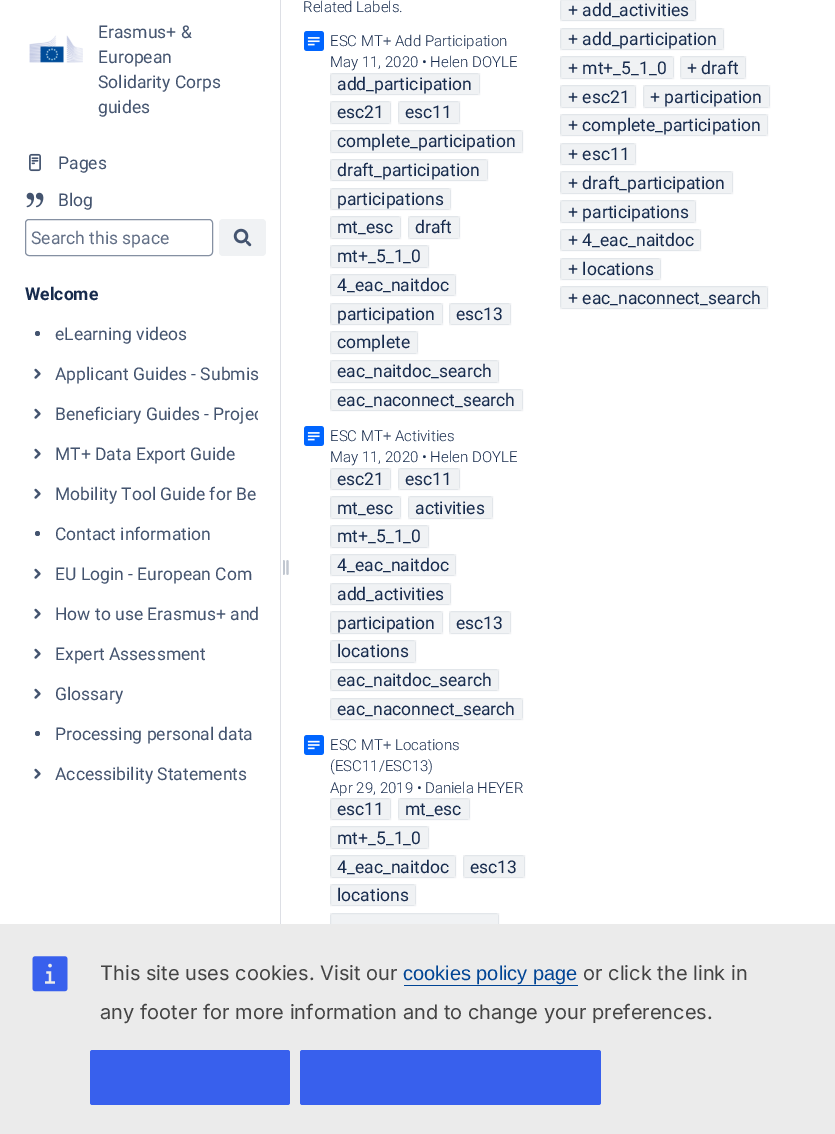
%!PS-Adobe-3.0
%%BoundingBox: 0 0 835 1134
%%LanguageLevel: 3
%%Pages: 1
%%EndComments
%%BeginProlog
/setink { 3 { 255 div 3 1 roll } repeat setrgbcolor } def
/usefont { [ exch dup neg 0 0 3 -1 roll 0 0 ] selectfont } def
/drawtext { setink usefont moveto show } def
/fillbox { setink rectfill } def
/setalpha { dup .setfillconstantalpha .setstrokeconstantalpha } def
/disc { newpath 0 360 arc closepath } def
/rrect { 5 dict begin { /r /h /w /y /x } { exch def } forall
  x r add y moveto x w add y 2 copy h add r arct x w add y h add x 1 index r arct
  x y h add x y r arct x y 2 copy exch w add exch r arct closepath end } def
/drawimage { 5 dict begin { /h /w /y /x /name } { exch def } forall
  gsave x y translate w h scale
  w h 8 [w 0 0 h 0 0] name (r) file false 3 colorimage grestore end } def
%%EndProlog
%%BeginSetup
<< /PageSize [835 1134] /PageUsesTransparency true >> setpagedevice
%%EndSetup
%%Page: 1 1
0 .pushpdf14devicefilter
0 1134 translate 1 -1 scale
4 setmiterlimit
0 0 835 1134 255 255 255 fillbox
280 0 1 924 221 223 229 fillbox
(assets/img1.rgb) 29 35 54 28 drawimage
(Erasmus+ &) 98 38 /Roboto-Regular 17.5 68 84 111 drawtext
(European) 98 63 /Roboto-Regular 17.5 68 84 111 drawtext
(Solidarity Corps) 98 88 /Roboto-Regular 17.5 68 84 111 drawtext
(guides) 98 113 /Roboto-Regular 17.5 68 84 111 drawtext
(assets/img2.rgb) 29 153 12 19 drawimage
(Pages) 58 169 /Roboto-Regular 17.5 68 84 111 drawtext
(assets/img3.rgb) 26 192 18 16 drawimage
(Blog) 58 206 /Roboto-Regular 17.5 68 84 111 drawtext
133 144 162 setink
25.5 219.5 187 36 3.5 rrect stroke
(Search this space) 31 244 /Roboto-Regular 17.5 98 111 134 drawtext
240 242 244 setink
219 219 47 37 4 rrect fill
(assets/img4.rgb) 233 228 19 19 drawimage
(Welcome) 25 300 /Roboto-Bold 17.5 23 43 77 drawtext
68 84 111 setink
37.5 333.5 2.5 disc fill
(eLearning videos) 55 340 /Roboto-Regular 17.5 68 84 111 drawtext
(assets/img5.rgb) 34 368 7 11 drawimage
(Applicant Guides - Submis) 55 380 /Roboto-Regular 17.5 68 84 111 drawtext
(assets/img5.rgb) 34 408 7 11 drawimage
gsave
53 399 205 30 rectclip
(Beneficiary Guides - Projec) 55 420 /Roboto-Regular 17.5 68 84 111 drawtext
grestore
(assets/img5.rgb) 34 448 7 11 drawimage
(MT+ Data Export Guide) 55 460 /Roboto-Regular 17.5 68 84 111 drawtext
(assets/img5.rgb) 34 488 7 11 drawimage
(Mobility Tool Guide for Be) 55 500 /Roboto-Regular 17.5 68 84 111 drawtext
37.5 533.5 2.5 disc fill
(Contact information) 55 540 /Roboto-Regular 17.5 68 84 111 drawtext
(assets/img5.rgb) 34 568 7 11 drawimage
(EU Login - European Com) 55 580 /Roboto-Regular 17.5 68 84 111 drawtext
(assets/img5.rgb) 34 608 7 11 drawimage
(How to use Erasmus+ and) 55 620 /Roboto-Regular 17.5 68 84 111 drawtext
(assets/img5.rgb) 34 648 7 11 drawimage
(Expert Assessment) 55 660 /Roboto-Regular 17.5 68 84 111 drawtext
(assets/img5.rgb) 34 688 7 11 drawimage
(Glossary) 55 700 /Roboto-Regular 17.5 68 84 111 drawtext
37.5 733.5 2.5 disc fill
(Processing personal data) 55 740 /Roboto-Regular 17.5 68 84 111 drawtext
(assets/img5.rgb) 34 768 7 11 drawimage
(Accessibility Statements) 55 780 /Roboto-Regular 17.5 68 84 111 drawtext
(assets/img6.rgb) 283 560 6 15 drawimage
(Related Labels.) 303 12 /Roboto-Light 15 23 43 77 drawtext
(assets/img7.rgb) 304 31 20 20 drawimage
(ESC MT+ Add Participation) 330 46 /Roboto-Light 15 23 43 77 drawtext
(May 11, 2020 • Helen DOYLE) 330 67 /Roboto-Light 15 23 43 77 drawtext
240 242 244 setink
330 73 150 22 4 rrect fill
0.06 setalpha
9 30 66 setink
330.5 73.5 149 21 rectstroke
1 setalpha
(add_participation) 337 90 /Roboto-Regular 17.5 23 43 77 drawtext
240 242 244 setink
330 101 61 23 4 rrect fill
0.06 setalpha
9 30 66 setink
330.5 101.5 60 22 rectstroke
1 setalpha
(esc21) 337 118 /Roboto-Regular 17.5 23 43 77 drawtext
240 242 244 setink
398 101 62 23 4 rrect fill
0.06 setalpha
9 30 66 setink
398.5 101.5 61 22 rectstroke
1 setalpha
(esc11) 405 118 /Roboto-Regular 17.5 23 43 77 drawtext
240 242 244 setink
330 130 193 23 4 rrect fill
0.06 setalpha
9 30 66 setink
330.5 130.5 192 22 rectstroke
1 setalpha
(complete_participation) 337 147 /Roboto-Regular 17.5 23 43 77 drawtext
240 242 244 setink
330 159 158 22 4 rrect fill
0.06 setalpha
9 30 66 setink
330.5 159.5 157 21 rectstroke
1 setalpha
(draft_participation) 337 176 /Roboto-Regular 17.5 23 43 77 drawtext
240 242 244 setink
330 188 121 22 4 rrect fill
0.06 setalpha
9 30 66 setink
330.5 188.5 120 21 rectstroke
1 setalpha
(participations) 337 205 /Roboto-Regular 17.5 23 43 77 drawtext
240 242 244 setink
330 216 71 23 4 rrect fill
0.06 setalpha
9 30 66 setink
330.5 216.5 70 22 rectstroke
1 setalpha
(mt_esc) 337 233 /Roboto-Regular 17.5 23 43 77 drawtext
240 242 244 setink
408 216 52 23 4 rrect fill
0.06 setalpha
9 30 66 setink
408.5 216.5 51 22 rectstroke
1 setalpha
(draft) 415 233 /Roboto-Regular 17.5 23 43 77 drawtext
240 242 244 setink
330 245 99 23 4 rrect fill
0.06 setalpha
9 30 66 setink
330.5 245.5 98 22 rectstroke
1 setalpha
(mt+_5_1_0) 337 262 /Roboto-Regular 17.5 23 43 77 drawtext
240 242 244 setink
330 274 126 22 4 rrect fill
0.06 setalpha
9 30 66 setink
330.5 274.5 125 21 rectstroke
1 setalpha
(4_eac_naitdoc) 337 291 /Roboto-Regular 17.5 23 43 77 drawtext
240 242 244 setink
330 303 113 22 4 rrect fill
0.06 setalpha
9 30 66 setink
330.5 303.5 112 21 rectstroke
1 setalpha
(participation) 337 320 /Roboto-Regular 17.5 23 43 77 drawtext
240 242 244 setink
449 303 62 22 4 rrect fill
0.06 setalpha
9 30 66 setink
449.5 303.5 61 21 rectstroke
1 setalpha
(esc13) 456 320 /Roboto-Regular 17.5 23 43 77 drawtext
240 242 244 setink
330 331 88 23 4 rrect fill
0.06 setalpha
9 30 66 setink
330.5 331.5 87 22 rectstroke
1 setalpha
(complete) 337 348 /Roboto-Regular 17.5 23 43 77 drawtext
240 242 244 setink
330 360 169 23 4 rrect fill
0.06 setalpha
9 30 66 setink
330.5 360.5 168 22 rectstroke
1 setalpha
(eac_naitdoc_search) 337 377 /Roboto-Regular 17.5 23 43 77 drawtext
240 242 244 setink
330 389 193 22 4 rrect fill
0.06 setalpha
9 30 66 setink
330.5 389.5 192 21 rectstroke
1 setalpha
(eac_naconnect_search) 337 406 /Roboto-Regular 17.5 23 43 77 drawtext
(assets/img7.rgb) 304 426 20 20 drawimage
(ESC MT+ Activities) 330 441 /Roboto-Light 15 23 43 77 drawtext
(May 11, 2020 • Helen DOYLE) 330 462 /Roboto-Light 15 23 43 77 drawtext
240 242 244 setink
330 468 61 22 4 rrect fill
0.06 setalpha
9 30 66 setink
330.5 468.5 60 21 rectstroke
1 setalpha
(esc21) 337 485 /Roboto-Regular 17.5 23 43 77 drawtext
240 242 244 setink
398 468 62 22 4 rrect fill
0.06 setalpha
9 30 66 setink
398.5 468.5 61 21 rectstroke
1 setalpha
(esc11) 405 485 /Roboto-Regular 17.5 23 43 77 drawtext
240 242 244 setink
330 496 71 23 4 rrect fill
0.06 setalpha
9 30 66 setink
330.5 496.5 70 22 rectstroke
1 setalpha
(mt_esc) 337 514 /Roboto-Regular 17.5 23 43 77 drawtext
240 242 244 setink
408 496 85 23 4 rrect fill
0.06 setalpha
9 30 66 setink
408.5 496.5 84 22 rectstroke
1 setalpha
(activities) 415 514 /Roboto-Regular 17.5 23 43 77 drawtext
240 242 244 setink
330 525 99 23 4 rrect fill
0.06 setalpha
9 30 66 setink
330.5 525.5 98 22 rectstroke
1 setalpha
(mt+_5_1_0) 337 542 /Roboto-Regular 17.5 23 43 77 drawtext
240 242 244 setink
330 554 126 22 4 rrect fill
0.06 setalpha
9 30 66 setink
330.5 554.5 125 21 rectstroke
1 setalpha
(4_eac_naitdoc) 337 571 /Roboto-Regular 17.5 23 43 77 drawtext
240 242 244 setink
330 583 121 22 4 rrect fill
0.06 setalpha
9 30 66 setink
330.5 583.5 120 21 rectstroke
1 setalpha
(add_activities) 337 600 /Roboto-Regular 17.5 23 43 77 drawtext
240 242 244 setink
330 611 113 23 4 rrect fill
0.06 setalpha
9 30 66 setink
330.5 611.5 112 22 rectstroke
1 setalpha
(participation) 337 629 /Roboto-Regular 17.5 23 43 77 drawtext
240 242 244 setink
449 611 62 23 4 rrect fill
0.06 setalpha
9 30 66 setink
449.5 611.5 61 22 rectstroke
1 setalpha
(esc13) 456 629 /Roboto-Regular 17.5 23 43 77 drawtext
240 242 244 setink
330 640 86 23 4 rrect fill
0.06 setalpha
9 30 66 setink
330.5 640.5 85 22 rectstroke
1 setalpha
(locations) 337 657 /Roboto-Regular 17.5 23 43 77 drawtext
240 242 244 setink
330 669 169 22 4 rrect fill
0.06 setalpha
9 30 66 setink
330.5 669.5 168 21 rectstroke
1 setalpha
(eac_naitdoc_search) 337 686 /Roboto-Regular 17.5 23 43 77 drawtext
240 242 244 setink
330 698 193 22 4 rrect fill
0.06 setalpha
9 30 66 setink
330.5 698.5 192 21 rectstroke
1 setalpha
(eac_naconnect_search) 337 715 /Roboto-Regular 17.5 23 43 77 drawtext
(assets/img8.rgb) 304 735 20 20 drawimage
(ESC MT+ Locations) 330 750 /Roboto-Light 15 23 43 77 drawtext
(\(ESC11/ESC13\)) 330 771 /Roboto-Light 15 23 43 77 drawtext
(Apr 29, 2019 • Daniela HEYER) 330 793 /Roboto-Light 15 23 43 77 drawtext
240 242 244 setink
330 798 61 22 4 rrect fill
0.06 setalpha
9 30 66 setink
330.5 798.5 60 21 rectstroke
1 setalpha
(esc11) 337 815 /Roboto-Regular 17.5 23 43 77 drawtext
240 242 244 setink
398 798 72 22 4 rrect fill
0.06 setalpha
9 30 66 setink
398.5 798.5 71 21 rectstroke
1 setalpha
(mt_esc) 405 815 /Roboto-Regular 17.5 23 43 77 drawtext
240 242 244 setink
330 826 99 23 4 rrect fill
0.06 setalpha
9 30 66 setink
330.5 826.5 98 22 rectstroke
1 setalpha
(mt+_5_1_0) 337 844 /Roboto-Regular 17.5 23 43 77 drawtext
240 242 244 setink
330 855 126 23 4 rrect fill
0.06 setalpha
9 30 66 setink
330.5 855.5 125 22 rectstroke
1 setalpha
(4_eac_naitdoc) 337 873 /Roboto-Regular 17.5 23 43 77 drawtext
240 242 244 setink
463 855 62 23 4 rrect fill
0.06 setalpha
9 30 66 setink
463.5 855.5 61 22 rectstroke
1 setalpha
(esc13) 470 873 /Roboto-Regular 17.5 23 43 77 drawtext
240 242 244 setink
330 884 86 22 4 rrect fill
0.06 setalpha
9 30 66 setink
330.5 884.5 85 21 rectstroke
1 setalpha
(locations) 337 901 /Roboto-Regular 17.5 23 43 77 drawtext
240 242 244 setink
330 913 169 22 4 rrect fill
0.06 setalpha
9 30 66 setink
330.5 913.5 168 21 rectstroke
1 setalpha
240 242 244 setink
560 -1 136 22 4 rrect fill
0.06 setalpha
9 30 66 setink
560.5 -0.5 135 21 rectstroke
1 setalpha
(+ add_activities) 568 16 /Roboto-Regular 17.5 23 43 77 drawtext
240 242 244 setink
560 28 164 22 4 rrect fill
0.06 setalpha
9 30 66 setink
560.5 28.5 163 21 rectstroke
1 setalpha
(+ add_participation) 568 45 /Roboto-Regular 17.5 23 43 77 drawtext
240 242 244 setink
560 56 114 23 4 rrect fill
0.06 setalpha
9 30 66 setink
560.5 56.5 113 22 rectstroke
1 setalpha
(+ mt+_5_1_0) 568 74 /Roboto-Regular 17.5 23 43 77 drawtext
240 242 244 setink
680 56 66 23 4 rrect fill
0.06 setalpha
9 30 66 setink
680.5 56.5 65 22 rectstroke
1 setalpha
(+ draft) 687 74 /Roboto-Regular 17.5 23 43 77 drawtext
240 242 244 setink
560 85 76 23 4 rrect fill
0.06 setalpha
9 30 66 setink
560.5 85.5 75 22 rectstroke
1 setalpha
(+ esc21) 568 103 /Roboto-Regular 17.5 23 43 77 drawtext
240 242 244 setink
643 85 127 23 4 rrect fill
0.06 setalpha
9 30 66 setink
643.5 85.5 126 22 rectstroke
1 setalpha
(+ participation) 650 103 /Roboto-Regular 17.5 23 43 77 drawtext
240 242 244 setink
560 114 208 22 4 rrect fill
0.06 setalpha
9 30 66 setink
560.5 114.5 207 21 rectstroke
1 setalpha
(+ complete_participation) 568 131 /Roboto-Regular 17.5 23 43 77 drawtext
240 242 244 setink
560 143 76 22 4 rrect fill
0.06 setalpha
9 30 66 setink
560.5 143.5 75 21 rectstroke
1 setalpha
(+ esc11) 568 160 /Roboto-Regular 17.5 23 43 77 drawtext
240 242 244 setink
560 171 173 23 4 rrect fill
0.06 setalpha
9 30 66 setink
560.5 171.5 172 22 rectstroke
1 setalpha
(+ draft_participation) 568 189 /Roboto-Regular 17.5 23 43 77 drawtext
240 242 244 setink
560 200 136 23 4 rrect fill
0.06 setalpha
9 30 66 setink
560.5 200.5 135 22 rectstroke
1 setalpha
(+ participations) 568 218 /Roboto-Regular 17.5 23 43 77 drawtext
240 242 244 setink
560 229 141 22 4 rrect fill
0.06 setalpha
9 30 66 setink
560.5 229.5 140 21 rectstroke
1 setalpha
(+ 4_eac_naitdoc) 568 246 /Roboto-Regular 17.5 23 43 77 drawtext
240 242 244 setink
560 258 101 22 4 rrect fill
0.06 setalpha
9 30 66 setink
560.5 258.5 100 21 rectstroke
1 setalpha
(+ locations) 568 275 /Roboto-Regular 17.5 23 43 77 drawtext
240 242 244 setink
560 286 208 23 4 rrect fill
0.06 setalpha
9 30 66 setink
560.5 286.5 207 22 rectstroke
1 setalpha
(+ eac_naconnect_search) 568 304 /Roboto-Regular 17.5 23 43 77 drawtext
0 924 835 210 235 235 235 fillbox
(assets/img9.rgb) 32 956 36 36 drawimage
(This site uses cookies. Visit our) 100 980 /Inter-Regular 20 68 68 68 drawtext
(cookies policy page) 403 980 /LiberationSans-Regular 20 0 68 148 drawtext
404 985 174 1 0 68 148 fillbox
(or click the link in) 583 980 /Inter-Regular 20 68 68 68 drawtext
(any footer for more information and to change your preferences.) 100 1019 /Inter-Regular 20 68 68 68 drawtext
56 96 237 setink
90 1050 200 55 2.5 rrect fill
300 1050 301 55 2.5 rrect fill
.poppdf14devicefilter showpage
%%EOF
